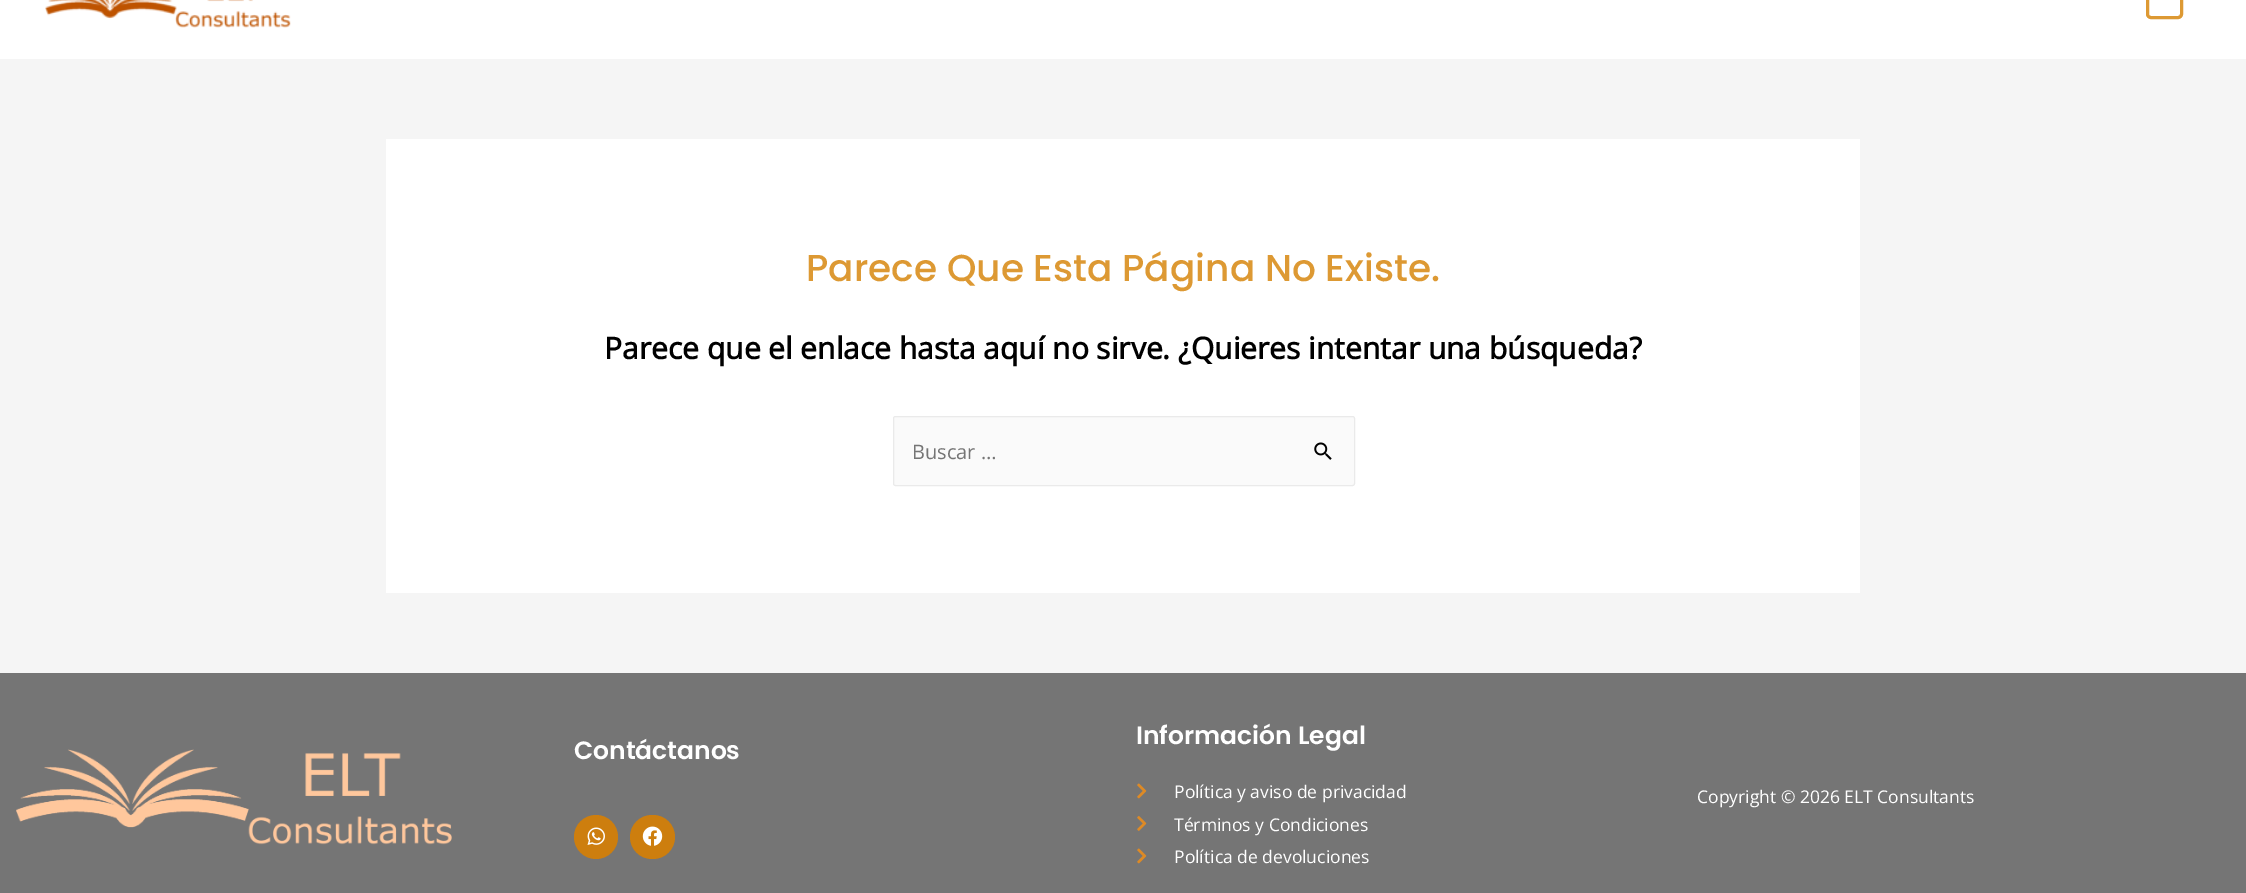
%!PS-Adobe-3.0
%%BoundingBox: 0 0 2246 893
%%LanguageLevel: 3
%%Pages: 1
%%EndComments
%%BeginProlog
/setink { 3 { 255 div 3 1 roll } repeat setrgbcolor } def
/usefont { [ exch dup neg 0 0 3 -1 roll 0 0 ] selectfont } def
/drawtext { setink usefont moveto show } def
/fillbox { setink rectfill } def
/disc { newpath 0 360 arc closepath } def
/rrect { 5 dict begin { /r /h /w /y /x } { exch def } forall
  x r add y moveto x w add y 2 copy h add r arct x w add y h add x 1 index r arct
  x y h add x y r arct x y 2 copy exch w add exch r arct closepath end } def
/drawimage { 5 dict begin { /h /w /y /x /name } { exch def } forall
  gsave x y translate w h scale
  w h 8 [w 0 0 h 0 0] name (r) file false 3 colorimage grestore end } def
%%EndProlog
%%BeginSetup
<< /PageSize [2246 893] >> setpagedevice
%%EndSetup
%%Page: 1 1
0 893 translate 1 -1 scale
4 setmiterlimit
0 0 2246 893 245 245 245 fillbox
0 0 2246 59 255 255 255 fillbox
(assets/img1.rgb) 45 0 246 28 drawimage
221 153 51 setink
3 setlinewidth
2147.5 -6.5 moveto 2181.5 -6.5 lineto 2181.5 14 lineto 2181.5 16 2180 17.5 2178 17.5 curveto 2151 17.5 lineto 2149 17.5 2147.5 16 2147.5 14 curveto closepath stroke
386 139 1474 454 255 255 255 fillbox
(Parece Que Esta Página No Existe.) 806 281 /Poppins-Medium 37.5 221 153 51 drawtext
(Parece que el enlace hasta aquí no sirve. ¿Quieres intentar una búsqueda?) 604 359 /OpenSans-Bold 30 0 0 0 drawtext
250 250 250 setink
893.5 416.5 461 69 2 rrect gsave fill grestore
234 234 234 setink
1 setlinewidth
stroke
(Buscar …) 912 459 /OpenSans-Regular 20 117 117 117 drawtext
(assets/img2.rgb) 1314 442 18 18 drawimage
0 673 2246 220 117 117 117 fillbox
(assets/img3.rgb) 16 749 436 96 drawimage
(Contáctanos) 574 759 /Poppins-SemiBold 25 255 255 255 drawtext
205 126 14 setink
596 837 22 disc fill
(assets/img4.rgb) 587 827 18 18 drawimage
630 815 45 44 22 rrect fill
(assets/img5.rgb) 642 826 21 20 drawimage
(Información Legal) 1136 744 /Poppins-SemiBold 25 255 255 255 drawtext
(assets/img6.rgb) 1137 783 10 16 drawimage
(Política y aviso de privacidad) 1174 798 /OpenSans-Regular 17.5 255 255 255 drawtext
(assets/img7.rgb) 1137 816 10 15 drawimage
(Términos y Condiciones) 1174 831 /OpenSans-Regular 17.5 255 255 255 drawtext
(assets/img6.rgb) 1137 848 10 16 drawimage
(Política de devoluciones) 1174 863 /OpenSans-Regular 17.5 255 255 255 drawtext
(Copyright © 2026 ELT Consultants) 1697 803 /OpenSans-Regular 17.5 255 255 255 drawtext
showpage
%%EOF
